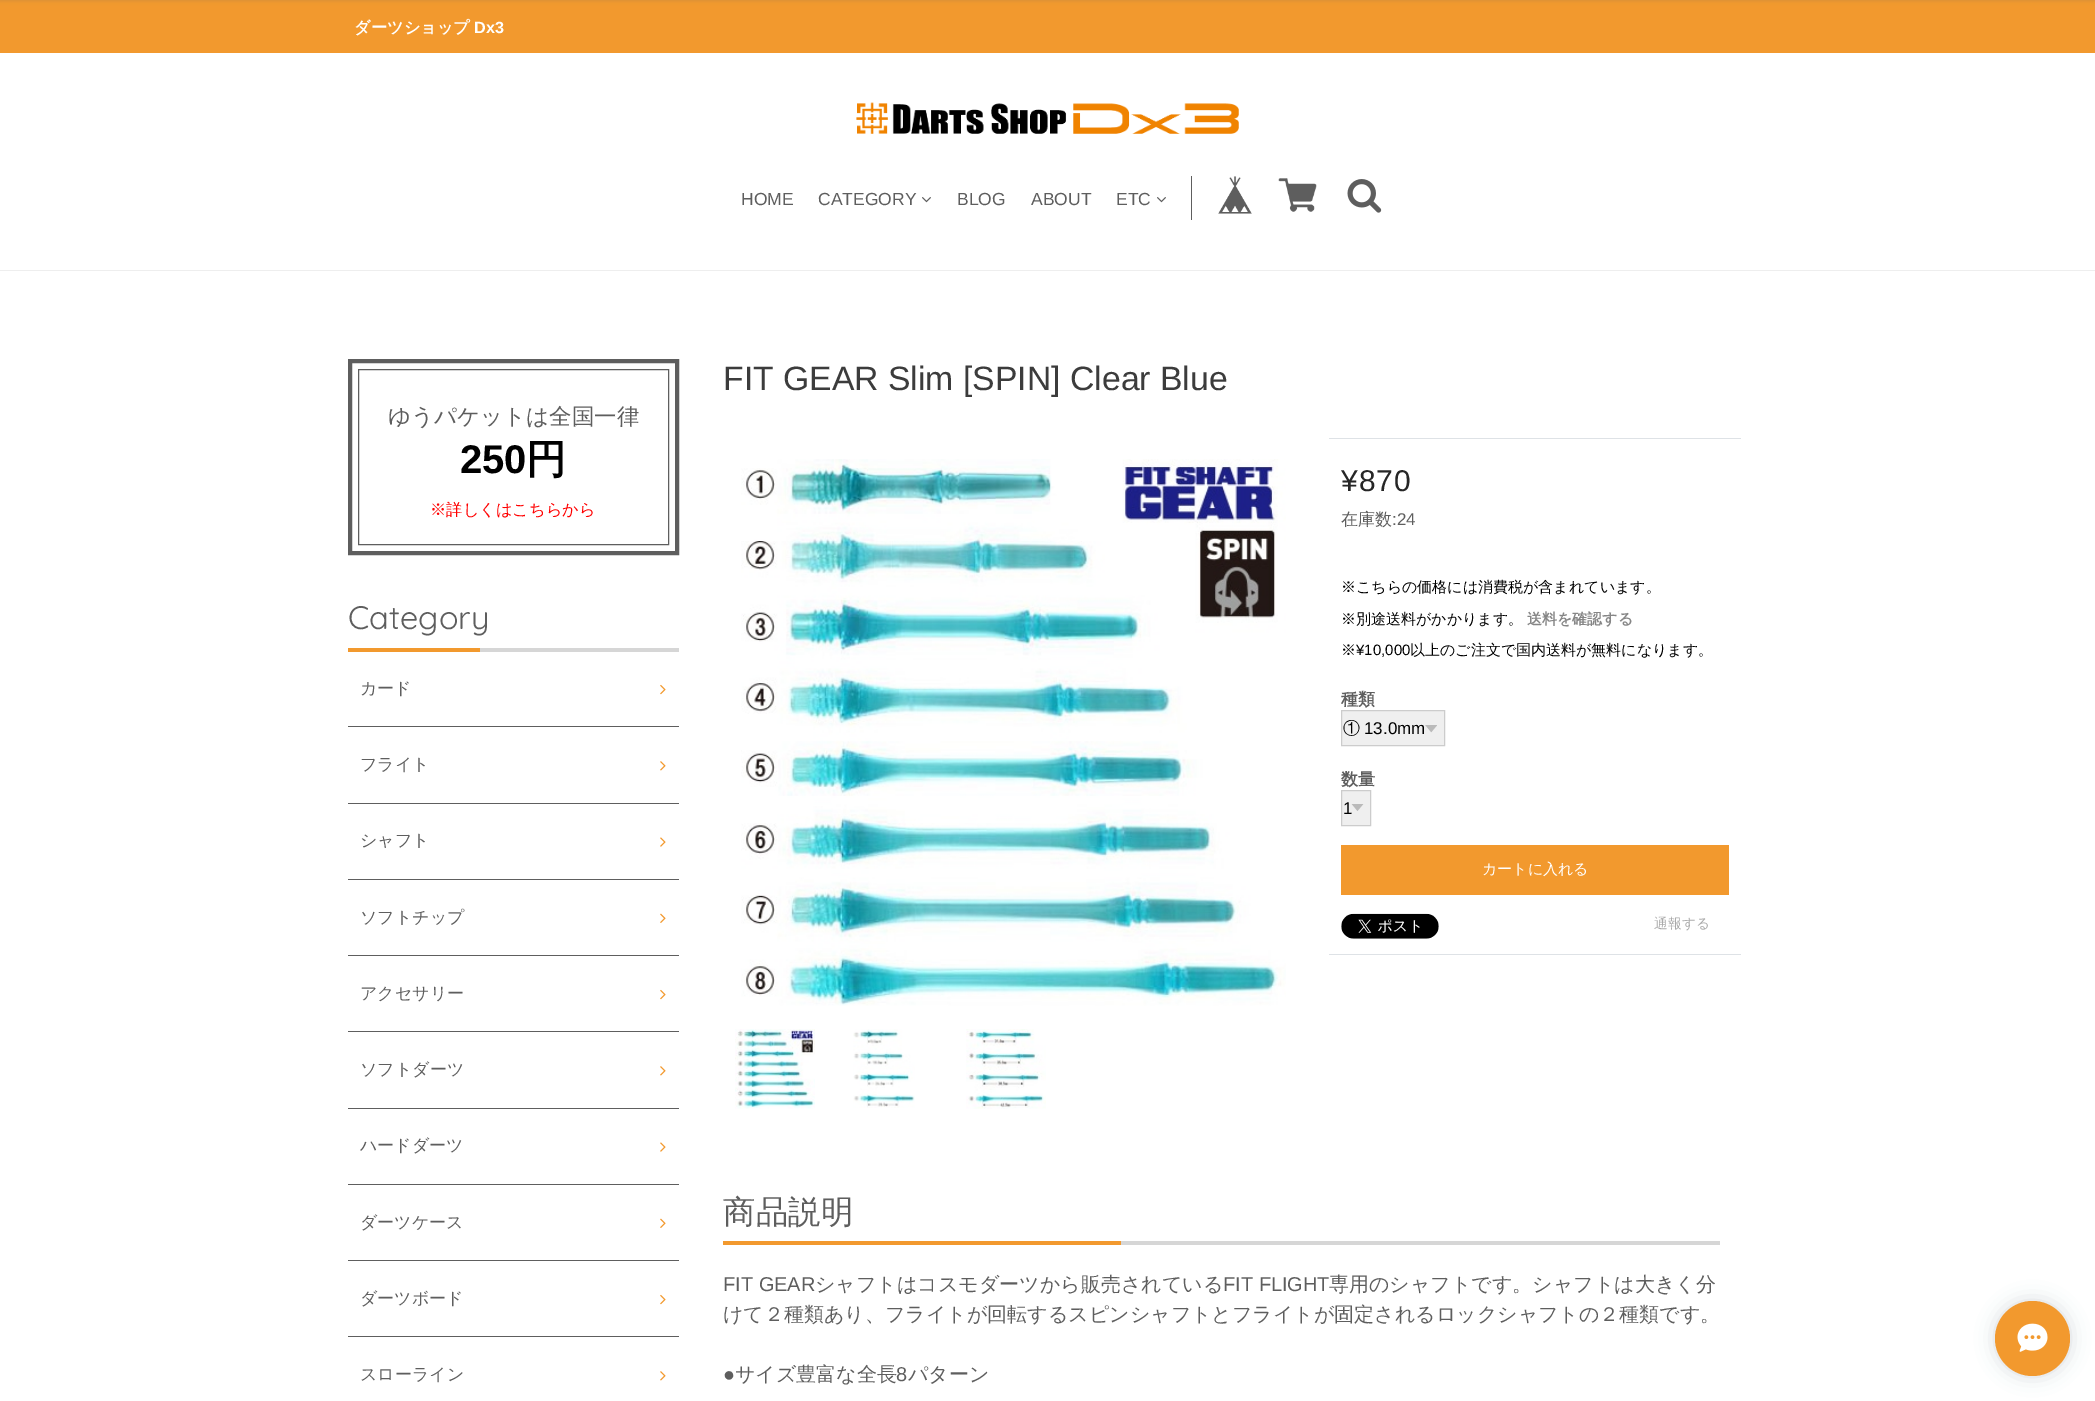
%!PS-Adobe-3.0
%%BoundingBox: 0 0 2095 1401
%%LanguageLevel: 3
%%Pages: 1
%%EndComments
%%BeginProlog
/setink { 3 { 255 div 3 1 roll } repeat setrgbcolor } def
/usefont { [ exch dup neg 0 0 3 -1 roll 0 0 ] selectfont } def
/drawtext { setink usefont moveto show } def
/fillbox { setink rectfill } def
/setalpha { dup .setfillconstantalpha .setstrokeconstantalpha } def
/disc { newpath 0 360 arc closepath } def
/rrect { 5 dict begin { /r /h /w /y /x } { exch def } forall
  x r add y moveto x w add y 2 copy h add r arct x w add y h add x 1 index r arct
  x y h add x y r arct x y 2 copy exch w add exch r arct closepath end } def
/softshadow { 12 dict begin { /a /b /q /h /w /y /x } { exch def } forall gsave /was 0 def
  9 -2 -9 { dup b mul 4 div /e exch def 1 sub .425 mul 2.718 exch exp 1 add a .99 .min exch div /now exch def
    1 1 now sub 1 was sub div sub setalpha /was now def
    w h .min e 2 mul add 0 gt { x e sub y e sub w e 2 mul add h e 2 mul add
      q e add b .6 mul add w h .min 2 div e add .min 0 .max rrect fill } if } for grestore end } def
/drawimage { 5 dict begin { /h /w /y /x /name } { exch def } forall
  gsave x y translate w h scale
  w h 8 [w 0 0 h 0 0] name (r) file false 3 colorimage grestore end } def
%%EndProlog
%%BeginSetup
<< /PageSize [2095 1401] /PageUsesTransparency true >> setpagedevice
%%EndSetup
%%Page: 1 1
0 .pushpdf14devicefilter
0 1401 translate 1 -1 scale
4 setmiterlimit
0 0 2095 1401 255 255 255 fillbox
0 0 2095 53 242 153 46 fillbox
100 100 100 setink
0 -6 2095 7 0 2 0.2 softshadow
(ダーツショップ) 354 33 /WenQuanYiZenHei-Bold 16.25 255 255 255 drawtext
(Dx3) 474 33 /LiberationSans-Bold 16.25 255 255 255 drawtext
0 270 2095 1 238 238 238 fillbox
(assets/img1.rgb) 856 102 383 32 drawimage
(HOME) 741 205 /LiberationSans-Regular 17.5 94 94 94 drawtext
(CATEGORY) 818 205 /LiberationSans-Regular 17.5 94 94 94 drawtext
(assets/img2.rgb) 922 197 9 6 drawimage
(BLOG) 957 205 /LiberationSans-Regular 17.5 94 94 94 drawtext
(ABOUT) 1031 205 /LiberationSans-Regular 17.5 94 94 94 drawtext
(ETC) 1116 205 /LiberationSans-Regular 17.5 94 94 94 drawtext
(assets/img2.rgb) 1157 197 9 6 drawimage
1191 176 1 44 94 94 94 fillbox
(assets/img3.rgb) 1218 176 34 38 drawimage
(assets/img4.rgb) 1278 178 39 34 drawimage
(assets/img5.rgb) 1347 179 35 34 drawimage
4 setlinewidth
350 361 327 192 rectstroke
1 setlinewidth
358.5 369.5 310 175 rectstroke
(ゆうパケットは全国一律) 388 424 /WenQuanYiZenHei-Medium 22.5 94 94 94 drawtext
(250) 460 473 /LiberationSans-Bold 40 0 0 0 drawtext
(円) 526 473 /WenQuanYiZenHei-Bold 40 0 0 0 drawtext
(※詳しくはこちらから) 430 515 /WenQuanYiZenHei-Medium 16.25 255 0 0 drawtext
480 648 199 4 214 214 214 fillbox
(Category) 348 629 /Quicksand-Light 32.5 94 94 94 drawtext
348 648 132 4 242 153 46 fillbox
348 726 331 1 94 94 94 fillbox
(カード) 360 694 /WenQuanYiZenHei-Medium 17 94 94 94 drawtext
(assets/img6.rgb) 660 684 6 11 drawimage
348 803 331 1 94 94 94 fillbox
(フライト) 360 770 /WenQuanYiZenHei-Medium 17 94 94 94 drawtext
(assets/img7.rgb) 660 761 6 10 drawimage
348 879 331 1 94 94 94 fillbox
(シャフト) 360 846 /WenQuanYiZenHei-Medium 17 94 94 94 drawtext
(assets/img8.rgb) 660 837 6 10 drawimage
348 955 331 1 94 94 94 fillbox
(ソフトチップ) 360 923 /WenQuanYiZenHei-Medium 17 94 94 94 drawtext
(assets/img9.rgb) 660 913 6 10 drawimage
348 1031 331 1 94 94 94 fillbox
(アクセサリー) 360 999 /WenQuanYiZenHei-Medium 17 94 94 94 drawtext
(assets/img6.rgb) 660 989 6 11 drawimage
348 1108 331 1 94 94 94 fillbox
(ソフトダーツ) 360 1075 /WenQuanYiZenHei-Medium 17 94 94 94 drawtext
(assets/img7.rgb) 660 1066 6 10 drawimage
348 1184 331 1 94 94 94 fillbox
(ハードダーツ) 360 1151 /WenQuanYiZenHei-Medium 17 94 94 94 drawtext
(assets/img8.rgb) 660 1142 6 10 drawimage
348 1260 331 1 94 94 94 fillbox
(ダーツケース) 360 1228 /WenQuanYiZenHei-Medium 17 94 94 94 drawtext
(assets/img9.rgb) 660 1218 6 10 drawimage
348 1336 331 1 94 94 94 fillbox
(ダーツボード) 360 1304 /WenQuanYiZenHei-Medium 17 94 94 94 drawtext
(assets/img6.rgb) 660 1294 6 11 drawimage
(スローライン) 360 1380 /WenQuanYiZenHei-Medium 17 94 94 94 drawtext
(assets/img7.rgb) 660 1371 6 10 drawimage
(FIT GEAR Slim [SPIN] Clear Blue) 723 390 /LiberationSans-Regular 33.75 60 60 60 drawtext
(assets/img10.rgb) 741 459 545 547 drawimage
(assets/img11.rgb) 735 1029 80 80 drawimage
(assets/img12.rgb) 853 1029 62 79 drawimage
(assets/img13.rgb) 966 1029 80 80 drawimage
1329 438 412 1 222 226 230 fillbox
1329 954 412 1 222 226 230 fillbox
/LiberationSans-Regular 30 usefont
38 38 38 setink
1341 491 moveto 1 0 (¥870) ashow
(在庫数) 1341 525 /WenQuanYiZenHei-Medium 17 94 94 94 drawtext
(:24) 1392 525 /LiberationSans-Regular 17 94 94 94 drawtext
(※こちらの価格には消費税が含まれています。) 1341 592 /WenQuanYiZenHei-Medium 15 0 0 0 drawtext
(※別途送料がかかります。) 1341 624 /WenQuanYiZenHei-Medium 15 0 0 0 drawtext
(送料を確認する) 1527 624 /WenQuanYiZenHei-Bold 15 134 134 134 drawtext
(※) 1341 655 /WenQuanYiZenHei-Medium 15 0 0 0 drawtext
(¥10,000) 1356 655 /LiberationSans-Regular 15 0 0 0 drawtext
(以上のご注文で国内送料が無料になります。) 1410 655 /WenQuanYiZenHei-Medium 15 0 0 0 drawtext
(種類) 1341 705 /WenQuanYiZenHei-Bold 17 94 94 94 drawtext
1342 711 102 34 239 239 239 fillbox
(assets/img14.rgb) 1425 725 12 8 drawimage
204 204 204 setink
1341.5 710.5 103 35 rectstroke
(①) 1343 734 /WenQuanYiZenHei-Medium 17 0 0 0 drawtext
(13.0mm) 1364 734 /LiberationSans-Regular 17 0 0 0 drawtext
(数量) 1341 785 /WenQuanYiZenHei-Bold 17 94 94 94 drawtext
1342 791 28 34 239 239 239 fillbox
(assets/img15.rgb) 1351 804 13 7 drawimage
204 204 204 setink
1341.5 790.5 29 35 rectstroke
(1) 1343 814 /LiberationSans-Regular 17 0 0 0 drawtext
1341 845 388 50 242 153 46 fillbox
(カートに入れる) 1482 874 /WenQuanYiZenHei-Medium 15 255 255 255 drawtext
(assets/img16.rgb) 1341 913 98 26 drawimage
(通報する) 1654 928 /WenQuanYiZenHei-Medium 13.75 170 170 170 drawtext
1121 1241 599 4 214 214 214 fillbox
(商品説明) 723 1223 /WenQuanYiZenHei-Medium 32.5 94 94 94 drawtext
723 1241 398 4 242 153 46 fillbox
(FIT GEAR) 723 1291 /LiberationSans-Regular 20 94 94 94 drawtext
(シャフトはコスモダーツから販売されている) 815 1291 /WenQuanYiZenHei-Medium 20 94 94 94 drawtext
(FIT FLIGHT) 1223 1291 /LiberationSans-Regular 20 94 94 94 drawtext
(専用のシャフトです。シャフトは大きく分) 1329 1291 /WenQuanYiZenHei-Medium 20 94 94 94 drawtext
(けて２種類あり、フライトが回転するスピンシャフトとフライトが固定されるロックシャフトの２種類です。) 723 1321 /WenQuanYiZenHei-Medium 20 94 94 94 drawtext
(●) 723 1381 /LiberationSans-Regular 20 94 94 94 drawtext
(サイズ豊富な全長) 735 1381 /WenQuanYiZenHei-Medium 20 94 94 94 drawtext
(8) 896 1381 /LiberationSans-Regular 20 94 94 94 drawtext
(パターン) 908 1381 /WenQuanYiZenHei-Medium 20 94 94 94 drawtext
51 66 88 setink
1995 1301 75 75 37.5 9.5 0.2 softshadow
242 153 46 setink
2032.5 1338.5 37.5 disc fill
(assets/img17.rgb) 2017 1323 31 29 drawimage
.poppdf14devicefilter showpage
%%EOF
